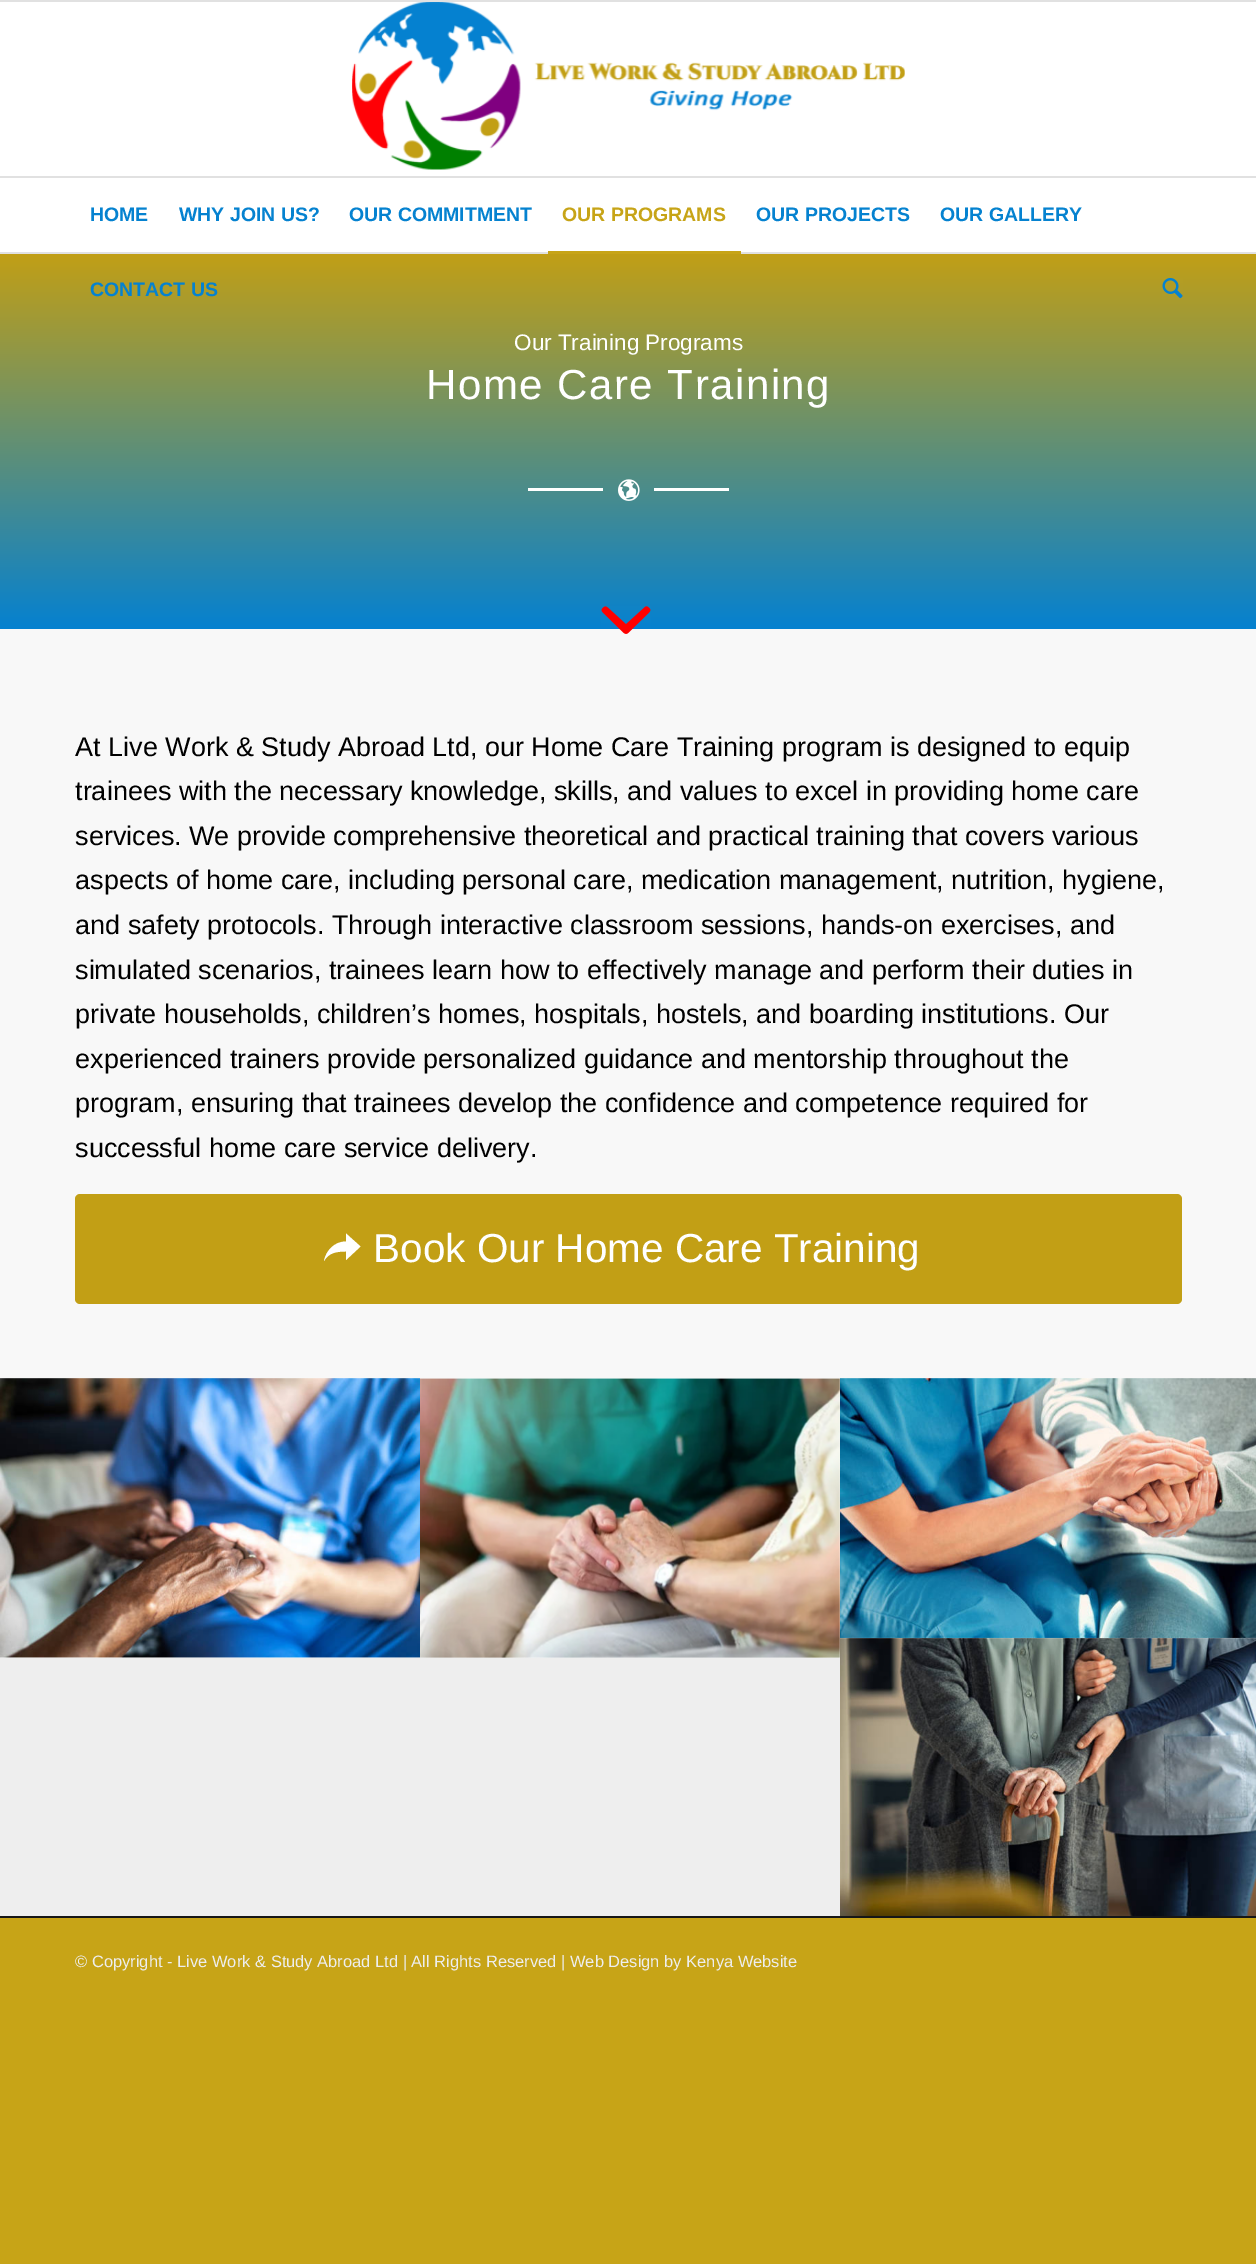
%!PS-Adobe-3.0
%%BoundingBox: 0 0 1256 2264
%%LanguageLevel: 3
%%Pages: 1
%%EndComments
%%BeginProlog
/setink { 3 { 255 div 3 1 roll } repeat setrgbcolor } def
/usefont { [ exch dup neg 0 0 3 -1 roll 0 0 ] selectfont } def
/drawtext { setink usefont moveto show } def
/fillbox { setink rectfill } def
/rrect { 5 dict begin { /r /h /w /y /x } { exch def } forall
  x r add y moveto x w add y 2 copy h add r arct x w add y h add x 1 index r arct
  x y h add x y r arct x y 2 copy exch w add exch r arct closepath end } def
/drawimage { 5 dict begin { /h /w /y /x /name } { exch def } forall
  gsave x y translate w h scale
  w h 8 [w 0 0 h 0 0] name (r) file false 3 colorimage grestore end } def
%%EndProlog
%%BeginSetup
<< /PageSize [1256 2264] >> setpagedevice
%%EndSetup
%%Page: 1 1
0 2264 translate 1 -1 scale
4 setmiterlimit
0 0 1256 2264 199 164 23 fillbox
0 2 1256 250 255 255 255 fillbox
0 0 1256 2 225 225 225 fillbox
0 252 1256 2 225 225 225 fillbox
(assets/img1.rgb) 352 2 553 168 drawimage
0 176 1256 2 225 225 225 fillbox
(HOME) 90 221 /LiberationSans-Bold 19.5 5 130 208 drawtext
(WHY JOIN US?) 179 221 /LiberationSans-Bold 19.5 5 130 208 drawtext
(OUR COMMITMENT) 349 221 /LiberationSans-Bold 19.5 5 130 208 drawtext
(OUR PROGRAMS) 562 221 /LiberationSans-Bold 19.5 199 164 23 drawtext
548 251 193 3 199 164 23 fillbox
(OUR PROJECTS) 756 221 /LiberationSans-Bold 19.5 5 130 208 drawtext
(OUR GALLERY) 940 221 /LiberationSans-Bold 19.5 5 130 208 drawtext
gsave 0 254 moveto 1256 254 lineto 1256 629 lineto 0 629 lineto closepath clip newpath
<< /ShadingType 2 /ColorSpace /DeviceRGB /Coords [629 252 629 629] /Extend [true true] /Function << /FunctionType 2 /Domain [0 1] /C0 [0.761 0.624 0.082] /C1 [0.02 0.506 0.816] /N 1 >> >> shfill grestore
(CONTACT US) 90 296 /LiberationSans-Bold 19.5 5 130 208 drawtext
(assets/img2.rgb) 1162 278 21 21 drawimage
(Our Training Programs) 514 350 /LiberationSans-Regular 22.5 255 255 255 drawtext
/LiberationSans-Regular 42 usefont
426 399 moveto 1.5 0 (Home Care Training) ashow
528 488 75 3 255 255 255 fillbox
(assets/img3.rgb) 618 479 22 22 drawimage
654 488 75 3 255 255 255 fillbox
0 629 1256 750 248 248 248 fillbox
(assets/img4.rgb) 601 606 50 28 drawimage
(At Live Work & Study Abroad Ltd, our Home Care Training program is designed to equip) 75 756 /LiberationSans-Regular 27 0 0 0 drawtext
(trainees with the necessary knowledge, skills, and values to excel in providing home care) 75 800 /LiberationSans-Regular 27 0 0 0 drawtext
(services. We provide comprehensive theoretical and practical training that covers various) 75 845 /LiberationSans-Regular 27 0 0 0 drawtext
(aspects of home care, including personal care, medication management, nutrition, hygiene,) 75 889 /LiberationSans-Regular 27 0 0 0 drawtext
(and safety protocols. Through interactive classroom sessions, hands-on exercises, and) 75 934 /LiberationSans-Regular 27 0 0 0 drawtext
(simulated scenarios, trainees learn how to effectively manage and perform their duties in) 75 979 /LiberationSans-Regular 27 0 0 0 drawtext
(private households, children’s homes, hospitals, hostels, and boarding institutions. Our) 75 1023 /LiberationSans-Regular 27 0 0 0 drawtext
(experienced trainers provide personalized guidance and mentorship throughout the) 75 1068 /LiberationSans-Regular 27 0 0 0 drawtext
(program, ensuring that trainees develop the confidence and competence required for) 75 1112 /LiberationSans-Regular 27 0 0 0 drawtext
(successful home care service delivery.) 75 1157 /LiberationSans-Regular 27 0 0 0 drawtext
194 159 21 setink
75 1194 1107 110 5 rrect fill
255 255 255 setink
346 1251.5 moveto 336.5 1251.5 329 1252.5 324 1261 curveto 326 1250.5 334.5 1241.5 346 1241.5 curveto 346 1233.5 lineto 360.5 1246.5 lineto 346 1260 lineto closepath fill
(Book Our Home Care Training) 373 1262 /LiberationSans-Regular 40.5 255 255 255 drawtext
0 1637 1256 279 238 238 238 fillbox
0 1657 420 1 248 248 248 fillbox
(assets/img5.rgb) 0 1378 420 280 drawimage
420 1379 420 279 248 248 248 fillbox
(assets/img6.rgb) 420 1378 420 280 drawimage
(assets/img7.rgb) 840 1378 416 260 drawimage
(assets/img8.rgb) 840 1638 416 278 drawimage
0 1916 1256 2 22 22 22 fillbox
(© Copyright - Live Work & Study Abroad Ltd | All Rights Reserved | Web Design by Kenya Website) 75 1967 /LiberationSans-Regular 16.5 238 238 238 drawtext
showpage
%%EOF
